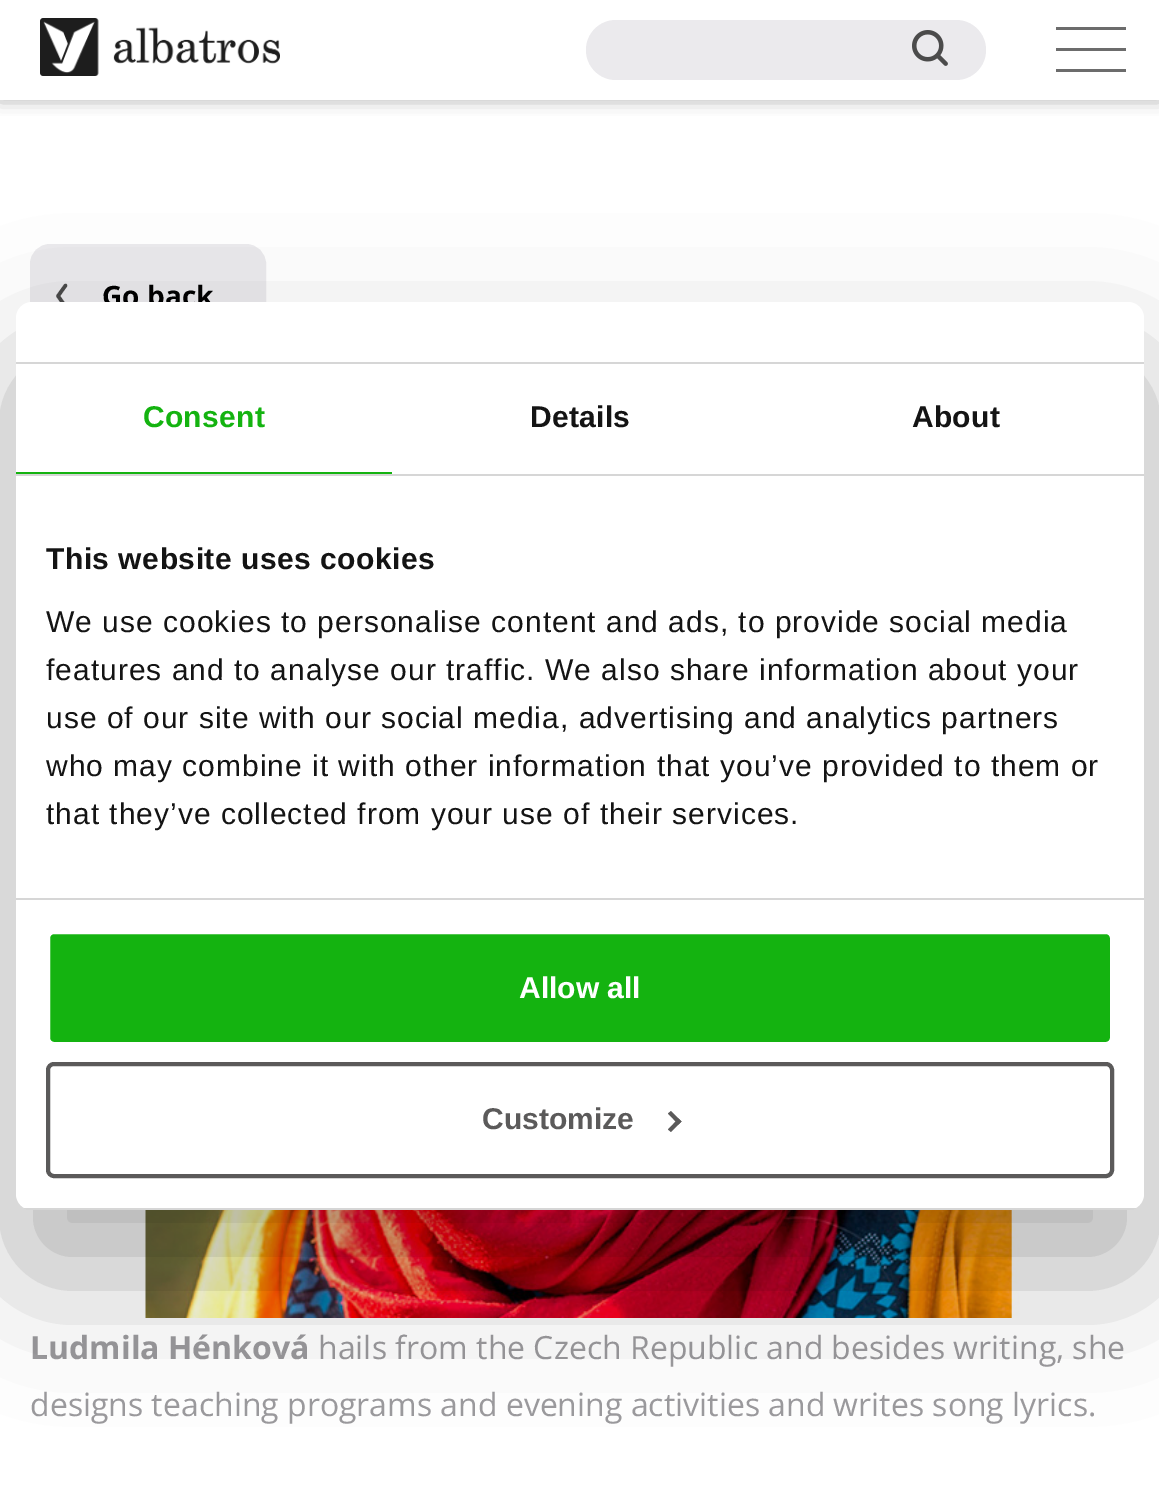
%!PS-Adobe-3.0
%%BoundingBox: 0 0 1159 1510
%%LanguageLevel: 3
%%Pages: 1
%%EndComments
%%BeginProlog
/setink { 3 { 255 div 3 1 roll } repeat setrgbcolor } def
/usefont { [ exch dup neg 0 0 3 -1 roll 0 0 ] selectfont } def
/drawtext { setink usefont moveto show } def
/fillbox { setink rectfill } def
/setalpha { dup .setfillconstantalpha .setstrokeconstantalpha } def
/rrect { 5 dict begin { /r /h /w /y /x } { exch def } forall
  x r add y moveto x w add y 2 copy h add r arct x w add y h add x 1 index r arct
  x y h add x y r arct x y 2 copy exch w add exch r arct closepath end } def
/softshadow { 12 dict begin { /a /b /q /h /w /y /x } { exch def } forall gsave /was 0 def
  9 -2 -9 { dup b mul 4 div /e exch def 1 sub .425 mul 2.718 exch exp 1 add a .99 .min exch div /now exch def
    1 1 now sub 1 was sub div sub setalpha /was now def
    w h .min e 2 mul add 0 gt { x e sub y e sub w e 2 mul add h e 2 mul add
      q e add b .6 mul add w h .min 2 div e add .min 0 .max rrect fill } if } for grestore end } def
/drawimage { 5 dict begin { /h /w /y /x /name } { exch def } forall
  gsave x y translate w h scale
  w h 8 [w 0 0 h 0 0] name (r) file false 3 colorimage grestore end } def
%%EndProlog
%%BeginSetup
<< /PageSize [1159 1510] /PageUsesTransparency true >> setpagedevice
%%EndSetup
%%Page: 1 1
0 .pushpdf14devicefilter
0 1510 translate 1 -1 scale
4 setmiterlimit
0 0 1159 1510 255 255 255 fillbox
gsave
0 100 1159 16 rectclip
145 145 145 setink
0 -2 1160 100 0 9 1 softshadow
grestore
(assets/img1.rgb) 40 18 240 58 drawimage
235 234 237 setink
586 20 400 60 30 rrect fill
(assets/img2.rgb) 912 30 36 36 drawimage
108 108 108 setink
1056 27 moveto 1056 30 lineto 1126 30 lineto 1126 27 lineto closepath 1056 48 moveto 1056 51 lineto 1126 51 lineto 1126 48 lineto closepath 1056 69 moveto 1056 72 lineto 1126 72 lineto 1126 69 lineto closepath fill
235 234 237 setink
31 245 234 106 19 rrect gsave fill grestore
2 setlinewidth
stroke
75 75 75 setink
3.5 setlinewidth
1 setlinecap
1 setlinejoin
65.5 285.5 moveto 58 296 lineto 65.5 306.5 lineto stroke
(Go back) 102 306 /OpenSans-Bold 28 0 0 0 drawtext
(assets/img3.rgb) 140 1210 880 108 drawimage
(Ludmila Hénková) 30 1359 /OpenSans-Bold 32 155 154 157 drawtext
(hails from the Czech Republic and besides writing, she) 318 1359 /OpenSans-Regular 32 155 154 157 drawtext
(designs teaching programs and evening activities and writes song lyrics.) 30 1416 /OpenSans-Regular 32 155 154 157 drawtext
0 0 0 setink
16 366 1128 908 16 68 0.3 softshadow
255 255 255 setink
16 302 1128 908 16 rrect fill
16 362 1128 2 214 214 214 fillbox
16 474 1128 2 214 214 214 fillbox
16 472 376 2 20 179 16 fillbox
/LiberationSans-Bold 30 usefont
143 427 moveto 0.25 0 (Consent) ashow
20 20 20 setink
530 427 moveto 0.25 0 (Details) ashow
912 427 moveto 0.25 0 (About) ashow
16 898 1128 2 214 214 214 fillbox
20 20 20 setink
46 569 moveto 0.5 0 (This website uses cookies) ashow
/LiberationSans-Regular 30 usefont
46 632 moveto 1 0 (We use cookies to personalise content and ads, to provide social media) ashow
46 680 moveto 1 0 (features and to analyse our traffic. We also share information about your) ashow
46 728 moveto 1 0 (use of our site with our social media, advertising and analytics partners) ashow
46 776 moveto 1 0 (who may combine it with other information that you’ve provided to them or) ashow
46 824 moveto 1 0 (that they’ve collected from your use of their services.) ashow
gsave
16 302 1128 908 16 rrect clip newpath
16 1208 1128 2 214 214 214 fillbox
grestore
20 179 16 setink
48 932 1064 112 6 rrect gsave fill grestore
255 255 255 setink
4 setlinewidth
0 setlinecap
0 setlinejoin
stroke
(Allow all) 519 998 /LiberationSans-Bold 30 255 255 255 drawtext
91 90 90 setink
48 1064 1064 112 6 rrect stroke
(Customize) 482 1129 /LiberationSans-Bold 30 91 90 90 drawtext
671 1111 moveto 681.5 1121.5 lineto 678.5 1124.5 lineto 668 1113.5 lineto closepath fill
678.5 1118.5 moveto 681.5 1121.5 lineto 671 1132 lineto 668 1129.5 lineto closepath fill
.poppdf14devicefilter showpage
%%EOF
